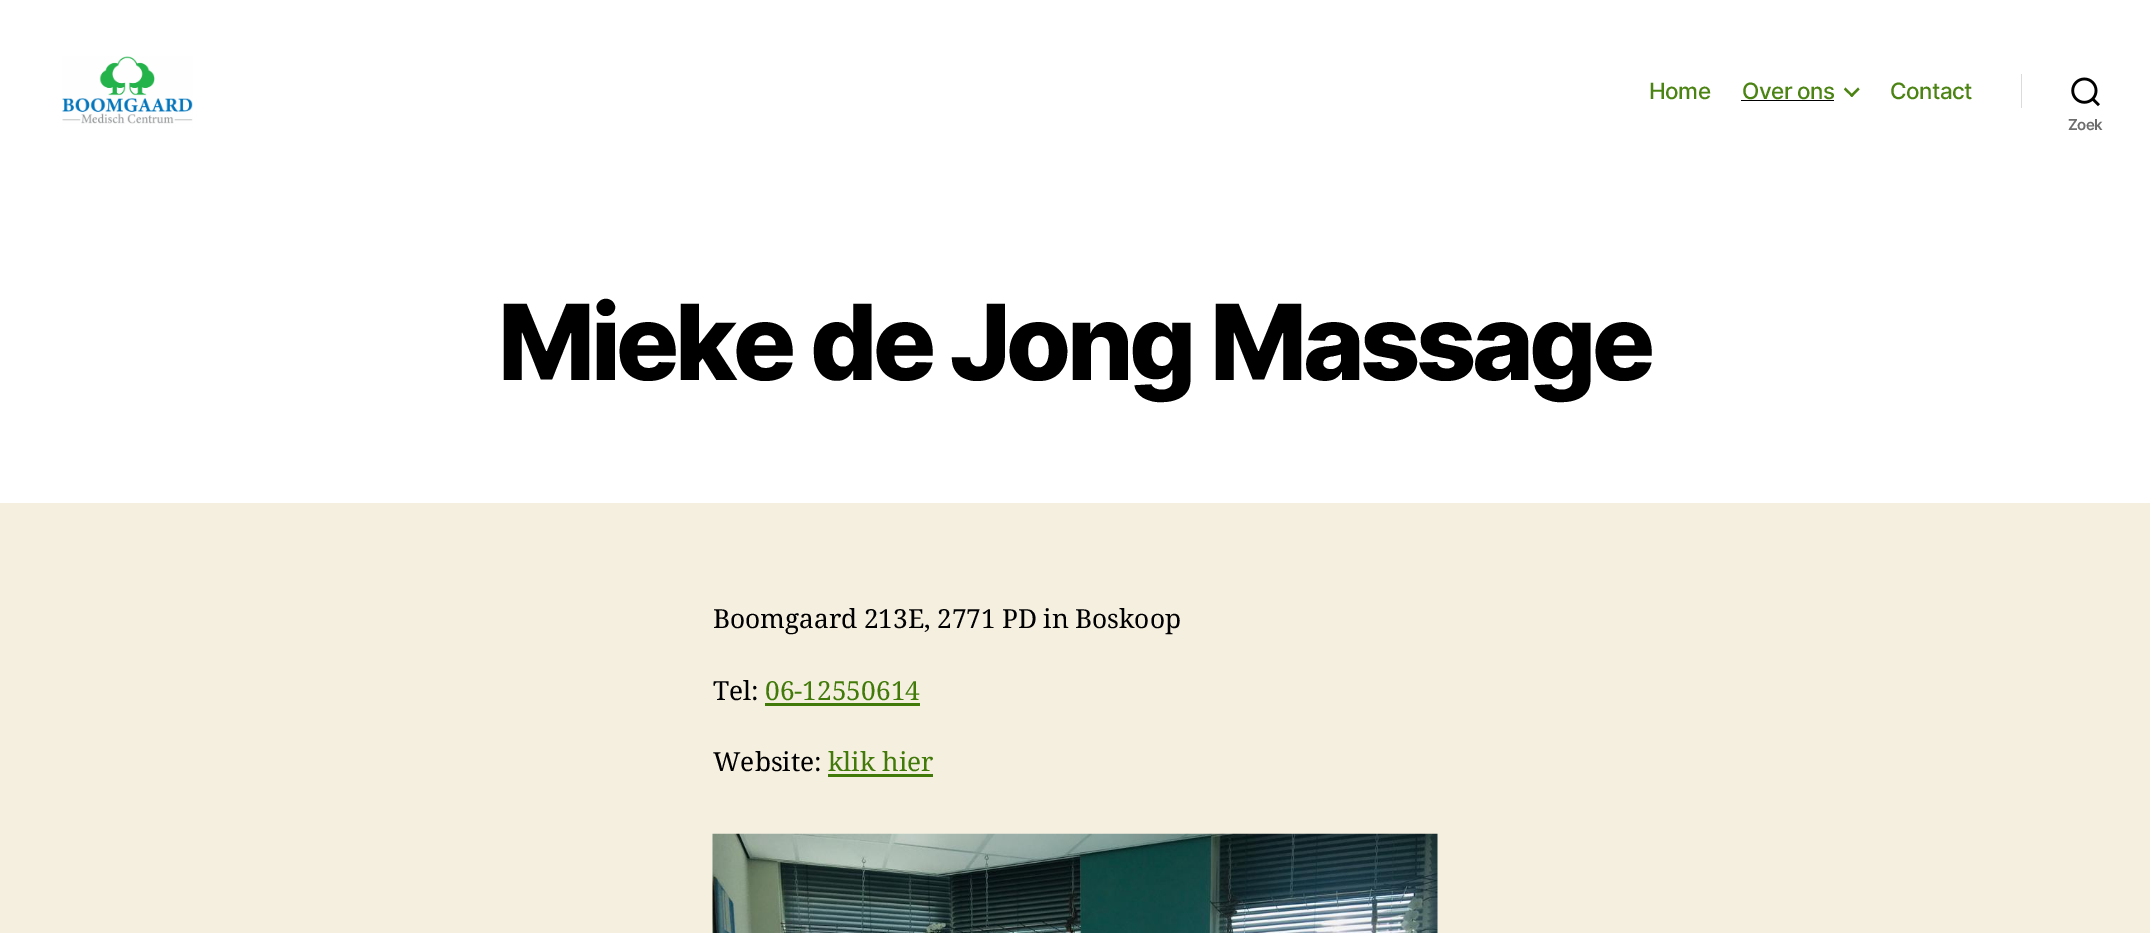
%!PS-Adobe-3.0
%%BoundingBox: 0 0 2150 933
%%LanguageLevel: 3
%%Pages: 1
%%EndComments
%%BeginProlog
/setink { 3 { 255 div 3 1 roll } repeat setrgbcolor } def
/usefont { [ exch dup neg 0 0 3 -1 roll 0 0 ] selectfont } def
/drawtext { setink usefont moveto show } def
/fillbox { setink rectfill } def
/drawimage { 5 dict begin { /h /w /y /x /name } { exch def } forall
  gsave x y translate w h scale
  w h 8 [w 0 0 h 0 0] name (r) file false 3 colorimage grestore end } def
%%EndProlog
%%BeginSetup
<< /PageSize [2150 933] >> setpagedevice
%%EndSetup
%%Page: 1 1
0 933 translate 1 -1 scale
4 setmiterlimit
0 0 2150 933 245 239 224 fillbox
0 0 2150 503 255 255 255 fillbox
(assets/img1.rgb) 62 56 131 68 drawimage
/Inter-Medium 22.5 usefont
76 132 20 setink
1649 99 moveto -0.5 0 (Home) ashow
1742 99 moveto -0.5 0 (Over ons) ashow
1741 100 93 1 0 0 0 fillbox
76 132 20 setink
1844 89.5 moveto 1845.5 87.5 lineto 1853.5 95.5 lineto 1852 97 lineto closepath fill
1850 95.5 moveto 1858 87.5 lineto 1859.5 89.5 lineto 1852 97 lineto closepath fill
1890 99 moveto -0.5 0 (Contact) ashow
2021 74 1 34 219 219 219 fillbox
(assets/img2.rgb) 2071 77 29 30 drawimage
/Inter-SemiBold 15 usefont
109 109 109 setink
2068 130 moveto -0.5 0 (Zoek) ashow
/Inter-ExtraBold 105 usefont
0 0 0 setink
498 380 moveto -4.4 0 (Mieke de Jong Massage) ashow
/NotoSerif-Regular 26.25 usefont
713 628 moveto -0.5 0 32 (Boomgaard 213E, 2771 PD in Boskoop) widthshow
(Tel:) 713 700 /NotoSerif-Regular 26.25 0 0 0 drawtext
(06-12550614) 765 700 /NotoSerif-Regular 26.25 66 122 9 drawtext
765 703 155 3 66 122 9 fillbox
(Website:) 713 771 /NotoSerif-Regular 26.25 0 0 0 drawtext
(klik hier) 828 771 /NotoSerif-Regular 26.25 66 122 9 drawtext
828 774 105 3 66 122 9 fillbox
(assets/img3.rgb) 712 833 726 100 drawimage
showpage
%%EOF
